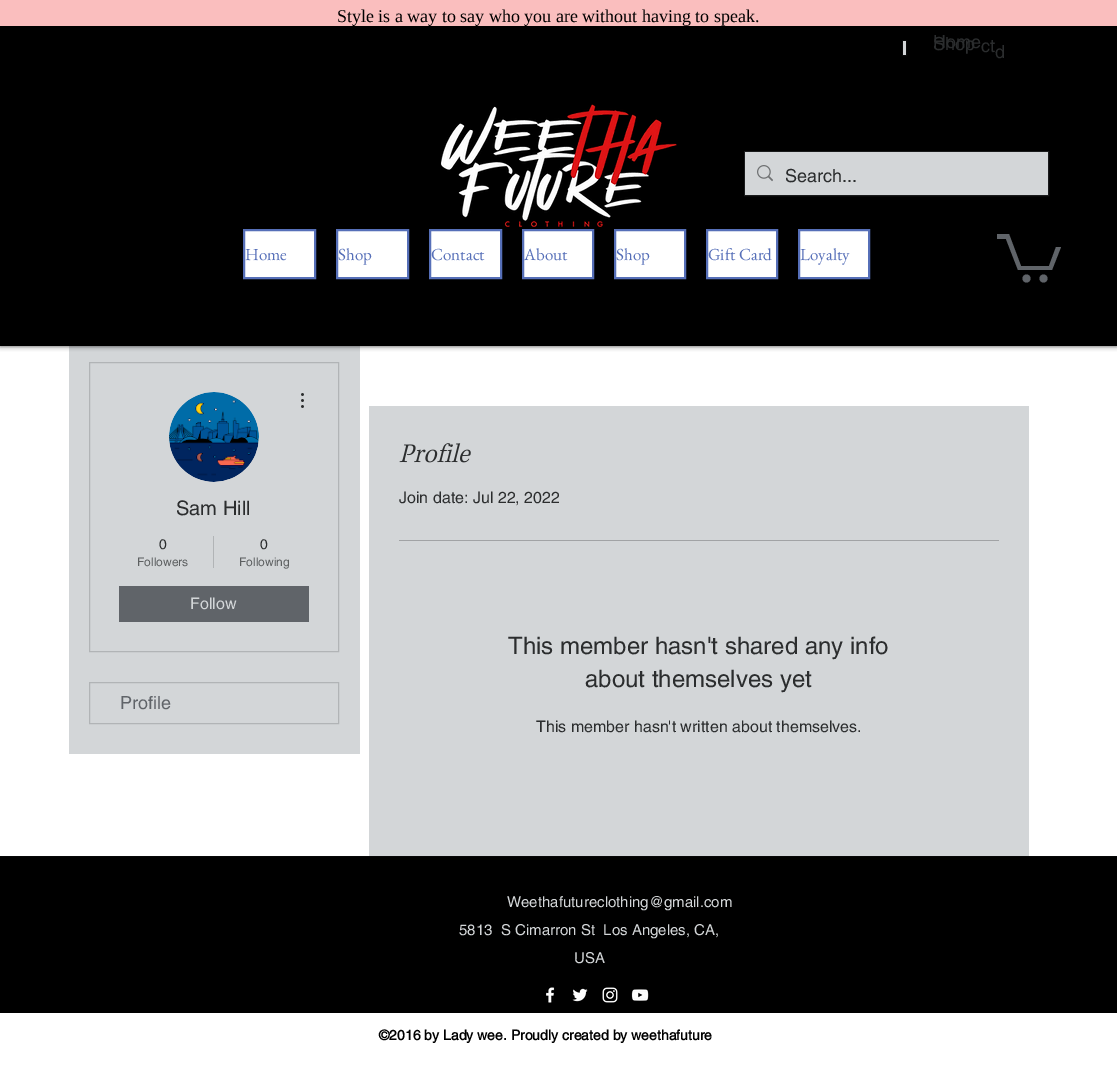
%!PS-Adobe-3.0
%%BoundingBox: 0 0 1117 1079
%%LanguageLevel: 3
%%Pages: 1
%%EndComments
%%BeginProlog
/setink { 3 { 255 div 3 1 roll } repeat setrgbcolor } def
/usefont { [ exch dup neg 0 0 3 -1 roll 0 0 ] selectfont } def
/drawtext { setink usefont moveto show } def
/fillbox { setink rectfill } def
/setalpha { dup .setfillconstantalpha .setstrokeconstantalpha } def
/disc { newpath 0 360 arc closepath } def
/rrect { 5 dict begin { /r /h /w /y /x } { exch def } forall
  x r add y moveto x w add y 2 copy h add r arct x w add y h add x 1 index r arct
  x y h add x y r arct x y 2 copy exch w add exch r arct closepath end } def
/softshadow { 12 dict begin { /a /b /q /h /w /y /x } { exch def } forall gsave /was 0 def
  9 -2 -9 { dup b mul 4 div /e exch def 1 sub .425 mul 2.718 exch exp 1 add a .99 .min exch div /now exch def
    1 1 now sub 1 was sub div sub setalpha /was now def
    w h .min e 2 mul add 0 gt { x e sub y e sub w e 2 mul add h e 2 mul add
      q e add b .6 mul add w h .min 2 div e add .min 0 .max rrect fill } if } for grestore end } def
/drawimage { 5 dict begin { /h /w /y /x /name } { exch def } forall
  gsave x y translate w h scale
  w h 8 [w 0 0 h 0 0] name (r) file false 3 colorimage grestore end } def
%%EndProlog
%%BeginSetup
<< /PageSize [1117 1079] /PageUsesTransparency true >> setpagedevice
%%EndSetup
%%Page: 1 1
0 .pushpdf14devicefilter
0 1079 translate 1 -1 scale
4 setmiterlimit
0 0 1117 1079 255 255 255 fillbox
69 346 291 408 211 214 216 fillbox
0 0 0 setink
0 0 1117 346 0 2.5 0.7 softshadow
0 26 1117 320 0 0 0 fillbox
0 0 1117 26 250 190 190 fillbox
(Style is a way to say who you are without having to speak.) 337 22 /LiberationSerif-Regular 18 0 0 0 drawtext
9 9 9 setink
902.5 40.5 4 15 rectstroke
903 41 3 14 211 214 216 fillbox
(Home) 933 48 /helvetica-Regular 18 43 45 46 drawtext
(Shop) 933 50 /helvetica-Regular 18 43 45 46 drawtext
(ct) 981 52 /helvetica-Regular 18 43 45 46 drawtext
(d) 995 58 /helvetica-Regular 18 43 45 46 drawtext
(assets/img1.rgb) 440 104 237 123 drawimage
26 27 28 setink
744.5 151.5 304 44 rectstroke
745 152 303 43 211 214 216 fillbox
(assets/img2.rgb) 757 165 16 17 drawimage
(Search...) 785 182 /helvetica-Regular 18 43 45 46 drawtext
255 255 255 setink
244 230 moveto 315 230 lineto 315 278 lineto 244 278 lineto closepath gsave fill grestore
86 111 184 setink
2 setlinewidth
stroke
(Home) 245 260 /EBGaramond-Regular 17 86 111 184 drawtext
255 255 255 setink
337 230 moveto 408 230 lineto 408 278 lineto 337 278 lineto closepath gsave fill grestore
86 111 184 setink
stroke
(Shop) 338 260 /EBGaramond-Regular 17 86 111 184 drawtext
255 255 255 setink
430 230 moveto 501 230 lineto 501 278 lineto 430 278 lineto closepath gsave fill grestore
86 111 184 setink
stroke
(Contact) 431 260 /EBGaramond-Regular 17 86 111 184 drawtext
255 255 255 setink
523 230 moveto 593 230 lineto 593 278 lineto 523 278 lineto closepath gsave fill grestore
86 111 184 setink
stroke
(About) 524 260 /EBGaramond-Regular 17 86 111 184 drawtext
255 255 255 setink
615 230 moveto 685 230 lineto 685 278 lineto 615 278 lineto closepath gsave fill grestore
86 111 184 setink
stroke
(Shop) 616 260 /EBGaramond-Regular 17 86 111 184 drawtext
255 255 255 setink
707 230 moveto 777 230 lineto 777 278 lineto 707 278 lineto closepath gsave fill grestore
86 111 184 setink
stroke
(Gift Card) 708 260 /EBGaramond-Regular 17 86 111 184 drawtext
255 255 255 setink
799 230 moveto 869 230 lineto 869 278 lineto 799 278 lineto closepath gsave fill grestore
86 111 184 setink
stroke
(Loyalty) 800 260 /EBGaramond-Regular 17 86 111 184 drawtext
96 100 105 setink
1061 247 moveto 1052 270 lineto 1018 270 lineto 1006 239 lineto 997 239 lineto 997 234 lineto 1009 234 lineto 1021 266 lineto 1049 266 lineto 1056 247 lineto fill
1043.5 278.5 4 disc fill
1026.5 278.5 4 disc fill
177 180 182 setink
1 setlinewidth
89.5 362.5 249 289 rectstroke
216 216 216 setink
214 437 45 disc fill
(assets/img3.rgb) 169 392 90 90 drawimage
(assets/img4.rgb) 301 393 3 15 drawimage
(Sam Hill) 176 515 /helvetica-Regular 20 43 45 46 drawtext
(0) 159 549 /helvetica-Regular 14 43 45 46 drawtext
(Followers) 137 566 /helvetica-Regular 12 93 96 97 drawtext
213 536 1 32 177 180 182 fillbox
(0) 260 549 /helvetica-Regular 14 43 45 46 drawtext
(Following) 239 566 /helvetica-Regular 12 93 96 97 drawtext
119 586 190 36 96 100 105 fillbox
(Follow) 190 609 /helvetica-Regular 16 211 214 216 drawtext
177 180 182 setink
89.5 682.5 249 41 rectstroke
(Profile) 120 709 /helvetica-Regular 18 96 100 105 drawtext
369 406 660 450 211 214 216 fillbox
(assets/img5.rgb) 399 443 72 20 drawimage
(Join date: Jul 22, 2022) 399 503 /helvetica-Regular 16 43 45 46 drawtext
399 540 600 1 161 163 165 fillbox
(This member hasn't shared any info) 508 654 /helvetica-Regular 24 43 45 46 drawtext
(about themselves yet) 585 687 /helvetica-Regular 24 43 45 46 drawtext
(This member hasn't written about themselves.) 536 732 /helvetica-Regular 16 43 45 46 drawtext
0 857 1117 156 0 0 0 fillbox
0 856 1117 1 6 7 7 fillbox
(Weethafutureclothing@gmail.com) 507 907 /helvetica-Regular 15 211 214 216 drawtext
(5813  S Cimarron St  Los Angeles, CA,) 459 935 /helvetica-Regular 15 211 214 216 drawtext
(USA) 574 963 /helvetica-Regular 15 211 214 216 drawtext
(assets/img6.rgb) 546 987 9 16 drawimage
(assets/img7.rgb) 572 988 16 14 drawimage
(assets/img8.rgb) 602 987 16 16 drawimage
(assets/img9.rgb) 631 989 18 12 drawimage
(©2016 by Lady wee. Proudly created by weethafuture) 379 1040 /helvetica-Bold 14 0 0 0 drawtext
.poppdf14devicefilter showpage
%%EOF
